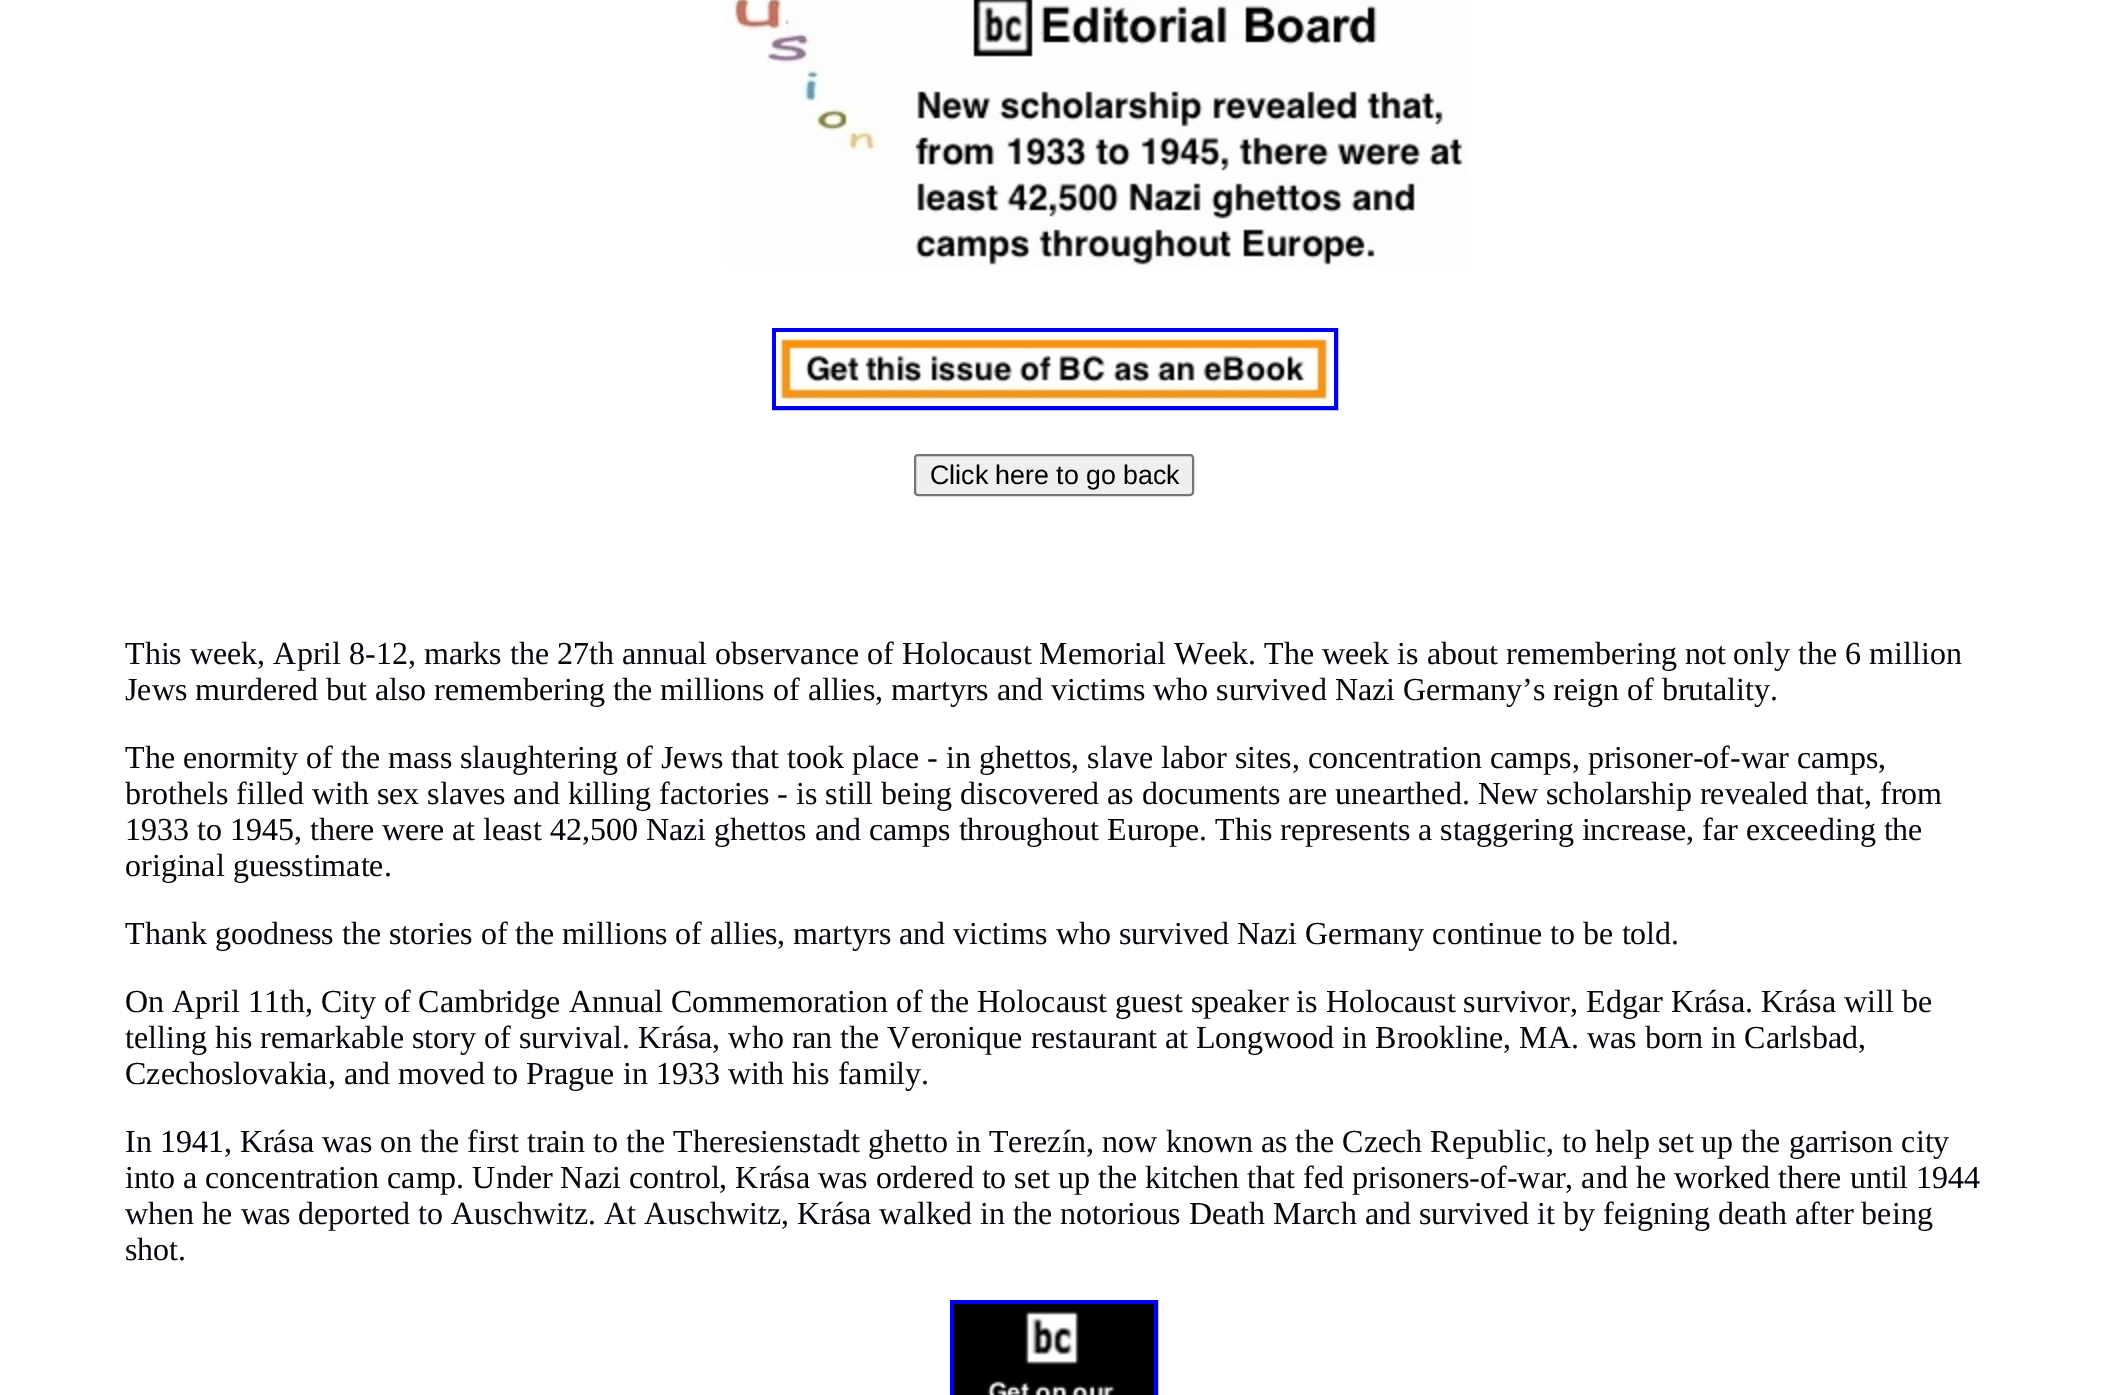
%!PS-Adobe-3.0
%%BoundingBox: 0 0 2108 1395
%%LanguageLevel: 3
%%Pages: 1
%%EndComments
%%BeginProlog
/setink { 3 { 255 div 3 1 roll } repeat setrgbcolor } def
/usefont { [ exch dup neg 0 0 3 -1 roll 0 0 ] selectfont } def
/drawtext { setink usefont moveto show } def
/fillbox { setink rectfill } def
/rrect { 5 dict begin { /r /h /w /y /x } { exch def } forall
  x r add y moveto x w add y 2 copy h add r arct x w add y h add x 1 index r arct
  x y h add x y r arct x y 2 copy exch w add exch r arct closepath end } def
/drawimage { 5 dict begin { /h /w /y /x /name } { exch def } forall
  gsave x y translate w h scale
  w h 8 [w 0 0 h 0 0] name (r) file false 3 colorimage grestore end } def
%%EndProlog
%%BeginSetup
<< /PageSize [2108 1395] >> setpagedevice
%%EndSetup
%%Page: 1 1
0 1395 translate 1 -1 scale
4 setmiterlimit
0 0 2108 1395 255 255 255 fillbox
(assets/img1.rgb) 726 0 742 267 drawimage
0 0 238 setink
4 setlinewidth
774 330 562 78 rectstroke
(assets/img2.rgb) 776 332 558 74 drawimage
239 239 239 setink
915 455 278 40 3 rrect gsave fill grestore
118 118 118 setink
2 setlinewidth
stroke
(Click here to go back) 930 484 /LiberationSans-Regular 26.75 0 0 0 drawtext
(This week, April 8-12, marks the 27th annual observance of Holocaust Memorial Week. The week is about remembering not only the 6 million) 125 664 /LiberationSerif-Regular 32 9 3 12 drawtext
(Jews murdered but also remembering the millions of allies, martyrs and victims who survived Nazi Germany’s reign of brutality.) 125 700 /LiberationSerif-Regular 32 9 3 12 drawtext
(The enormity of the mass slaughtering of Jews that took place - in ghettos, slave labor sites, concentration camps, prisoner-of-war camps,) 125 768 /LiberationSerif-Regular 32 9 3 12 drawtext
(brothels filled with sex slaves and killing factories - is still being discovered as documents are unearthed. New scholarship revealed that, from) 125 804 /LiberationSerif-Regular 32 9 3 12 drawtext
(1933 to 1945, there were at least 42,500 Nazi ghettos and camps throughout Europe. This represents a staggering increase, far exceeding the) 125 840 /LiberationSerif-Regular 32 9 3 12 drawtext
(original guesstimate.) 125 876 /LiberationSerif-Regular 32 9 3 12 drawtext
(Thank goodness the stories of the millions of allies, martyrs and victims who survived Nazi Germany continue to be told.) 125 944 /LiberationSerif-Regular 32 9 3 12 drawtext
(On April 11th, City of Cambridge Annual Commemoration of the Holocaust guest speaker is Holocaust survivor, Edgar Krása. Krása will be) 125 1012 /LiberationSerif-Regular 32 9 3 12 drawtext
(telling his remarkable story of survival. Krása, who ran the Veronique restaurant at Longwood in Brookline, MA. was born in Carlsbad,) 125 1048 /LiberationSerif-Regular 32 9 3 12 drawtext
(Czechoslovakia, and moved to Prague in 1933 with his family.) 125 1084 /LiberationSerif-Regular 32 9 3 12 drawtext
(In 1941, Krása was on the first train to the Theresienstadt ghetto in Terezín, now known as the Czech Republic, to help set up the garrison city) 125 1152 /LiberationSerif-Regular 32 9 3 12 drawtext
(into a concentration camp. Under Nazi control, Krása was ordered to set up the kitchen that fed prisoners-of-war, and he worked there until 1944) 125 1188 /LiberationSerif-Regular 32 9 3 12 drawtext
(when he was deported to Auschwitz. At Auschwitz, Krása walked in the notorious Death March and survived it by feigning death after being) 125 1224 /LiberationSerif-Regular 32 9 3 12 drawtext
(shot.) 125 1260 /LiberationSerif-Regular 32 9 3 12 drawtext
0 0 238 setink
4 setlinewidth
952 1302 204 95 rectstroke
(assets/img3.rgb) 954 1304 200 91 drawimage
showpage
%%EOF
